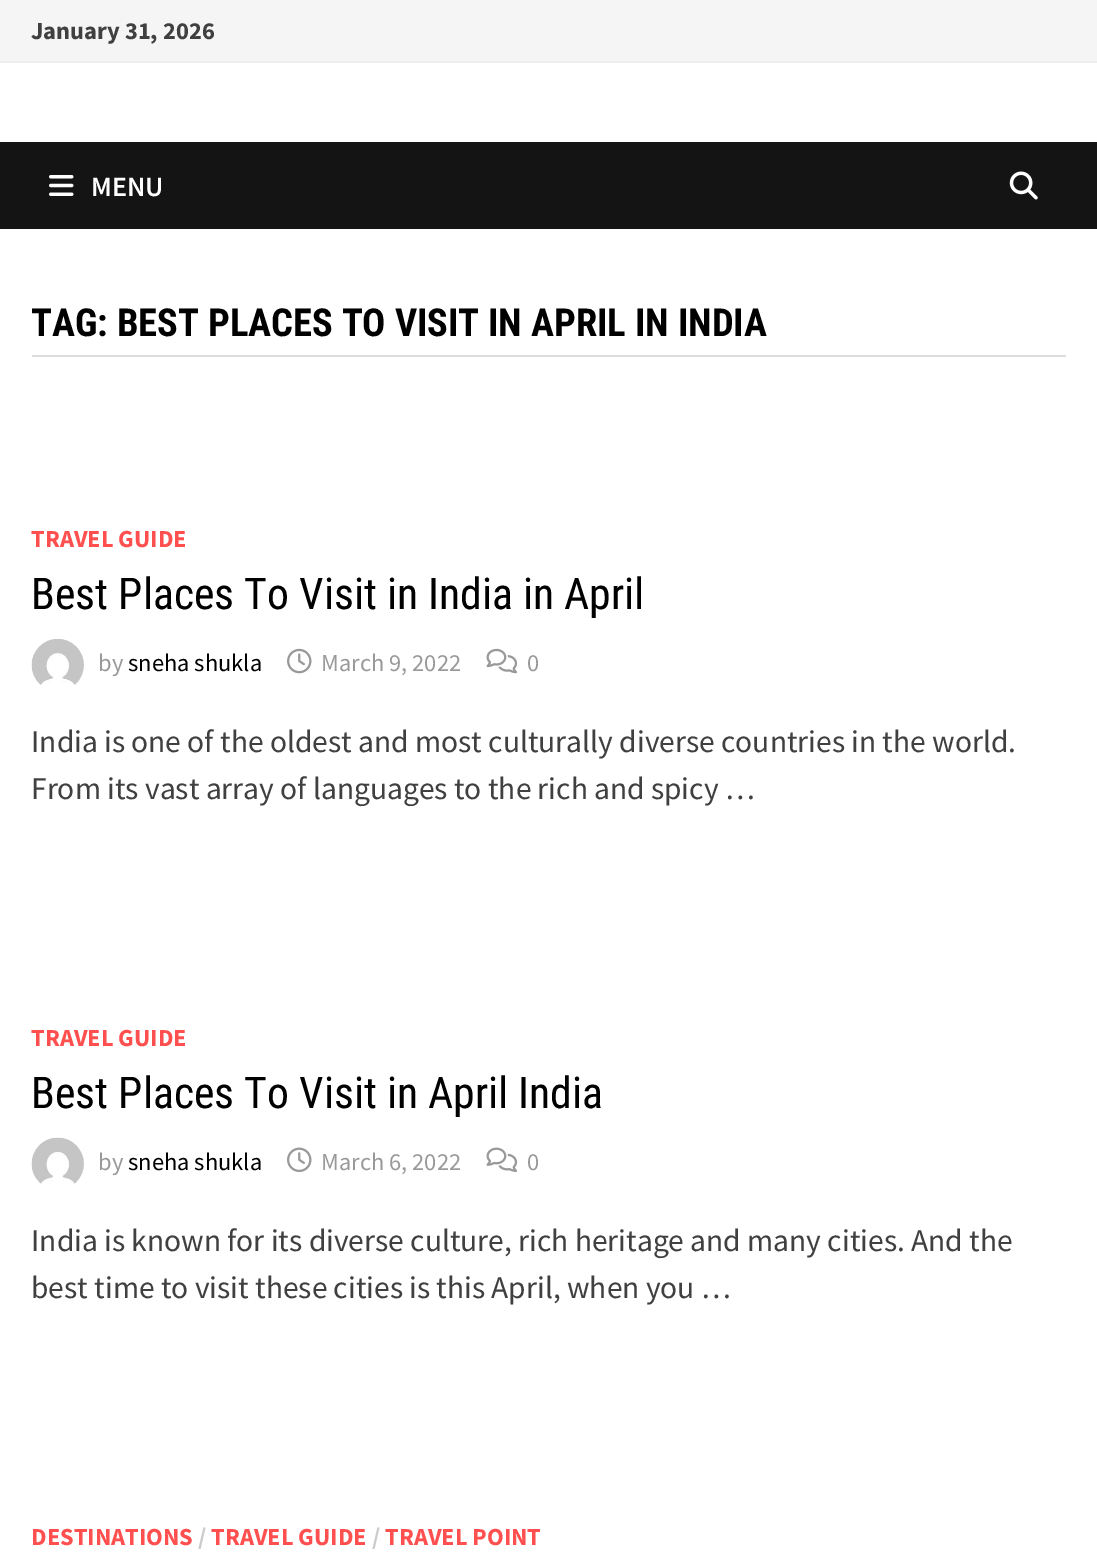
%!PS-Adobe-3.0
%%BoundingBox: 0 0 1097 1564
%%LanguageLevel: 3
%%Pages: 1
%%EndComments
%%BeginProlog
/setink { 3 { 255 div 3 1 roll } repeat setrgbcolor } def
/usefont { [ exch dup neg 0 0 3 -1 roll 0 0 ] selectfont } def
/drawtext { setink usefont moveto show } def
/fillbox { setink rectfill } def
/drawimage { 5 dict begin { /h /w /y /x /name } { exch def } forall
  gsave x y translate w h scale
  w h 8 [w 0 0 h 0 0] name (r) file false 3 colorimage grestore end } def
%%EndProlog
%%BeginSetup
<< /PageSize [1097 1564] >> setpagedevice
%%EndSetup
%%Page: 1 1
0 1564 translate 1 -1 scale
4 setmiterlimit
0 0 1097 1564 255 255 255 fillbox
0 0 1097 61 245 245 245 fillbox
0 61 1097 2 238 238 238 fillbox
(January 31, 2026) 31 39 /SourceSansPro-Bold 24.5 64 64 64 drawtext
0 142 1097 87 20 20 20 fillbox
(assets/img1.rgb) 49 175 25 21 drawimage
(MENU) 91 196 /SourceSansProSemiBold-SemiBold 28 255 255 255 drawtext
(assets/img2.rgb) 1009 171 29 29 drawimage
32 355 1034 2 221 221 221 fillbox
(TAG: BEST PLACES TO VISIT IN APRIL IN INDIA) 31 336 /RobotoCondensed-Bold 38.5 0 0 0 drawtext
(TRAVEL GUIDE) 31 547 /SourceSansPro-Bold 24.5 255 79 79 drawtext
(Best Places To Visit in India in April) 31 609 /RobotoCondensed-Regular 43.75 0 0 0 drawtext
(assets/img3.rgb) 31 639 53 46 drawimage
(by) 98 671 /SourceSansPro-Regular 24.5 153 153 153 drawtext
(sneha shukla) 128 671 /SourceSansPro-Regular 24.5 0 0 0 drawtext
(assets/img4.rgb) 287 648 25 26 drawimage
(March 9, 2022) 321 671 /SourceSansPro-Regular 24.5 153 153 153 drawtext
(assets/img5.rgb) 486 648 32 26 drawimage
(0) 527 671 /SourceSansPro-Regular 24.5 153 153 153 drawtext
(India is one of the oldest and most culturally diverse countries in the world.) 31 752 /SourceSansPro-Regular 31.5 64 64 64 drawtext
(From its vast array of languages to the rich and spicy …) 31 799 /SourceSansPro-Regular 31.5 64 64 64 drawtext
(TRAVEL GUIDE) 31 1046 /SourceSansPro-Bold 24.5 255 79 79 drawtext
(Best Places To Visit in April India) 31 1108 /RobotoCondensed-Regular 43.75 0 0 0 drawtext
(assets/img6.rgb) 31 1137 53 47 drawimage
(by) 98 1170 /SourceSansPro-Regular 24.5 153 153 153 drawtext
(sneha shukla) 128 1170 /SourceSansPro-Regular 24.5 0 0 0 drawtext
(assets/img7.rgb) 287 1147 25 26 drawimage
(March 6, 2022) 321 1170 /SourceSansPro-Regular 24.5 153 153 153 drawtext
(assets/img8.rgb) 486 1147 32 25 drawimage
(0) 527 1170 /SourceSansPro-Regular 24.5 153 153 153 drawtext
(India is known for its diverse culture, rich heritage and many cities. And the) 31 1251 /SourceSansPro-Regular 31.5 64 64 64 drawtext
(best time to visit these cities is this April, when you …) 31 1298 /SourceSansPro-Regular 31.5 64 64 64 drawtext
(DESTINATIONS) 31 1545 /SourceSansPro-Bold 24.5 255 79 79 drawtext
(/) 198 1545 /SourceSansPro-Bold 24.5 204 204 204 drawtext
(TRAVEL GUIDE) 211 1545 /SourceSansPro-Bold 24.5 255 79 79 drawtext
(/) 372 1545 /SourceSansPro-Bold 24.5 204 204 204 drawtext
(TRAVEL POINT) 385 1545 /SourceSansPro-Bold 24.5 255 79 79 drawtext
showpage
%%EOF
